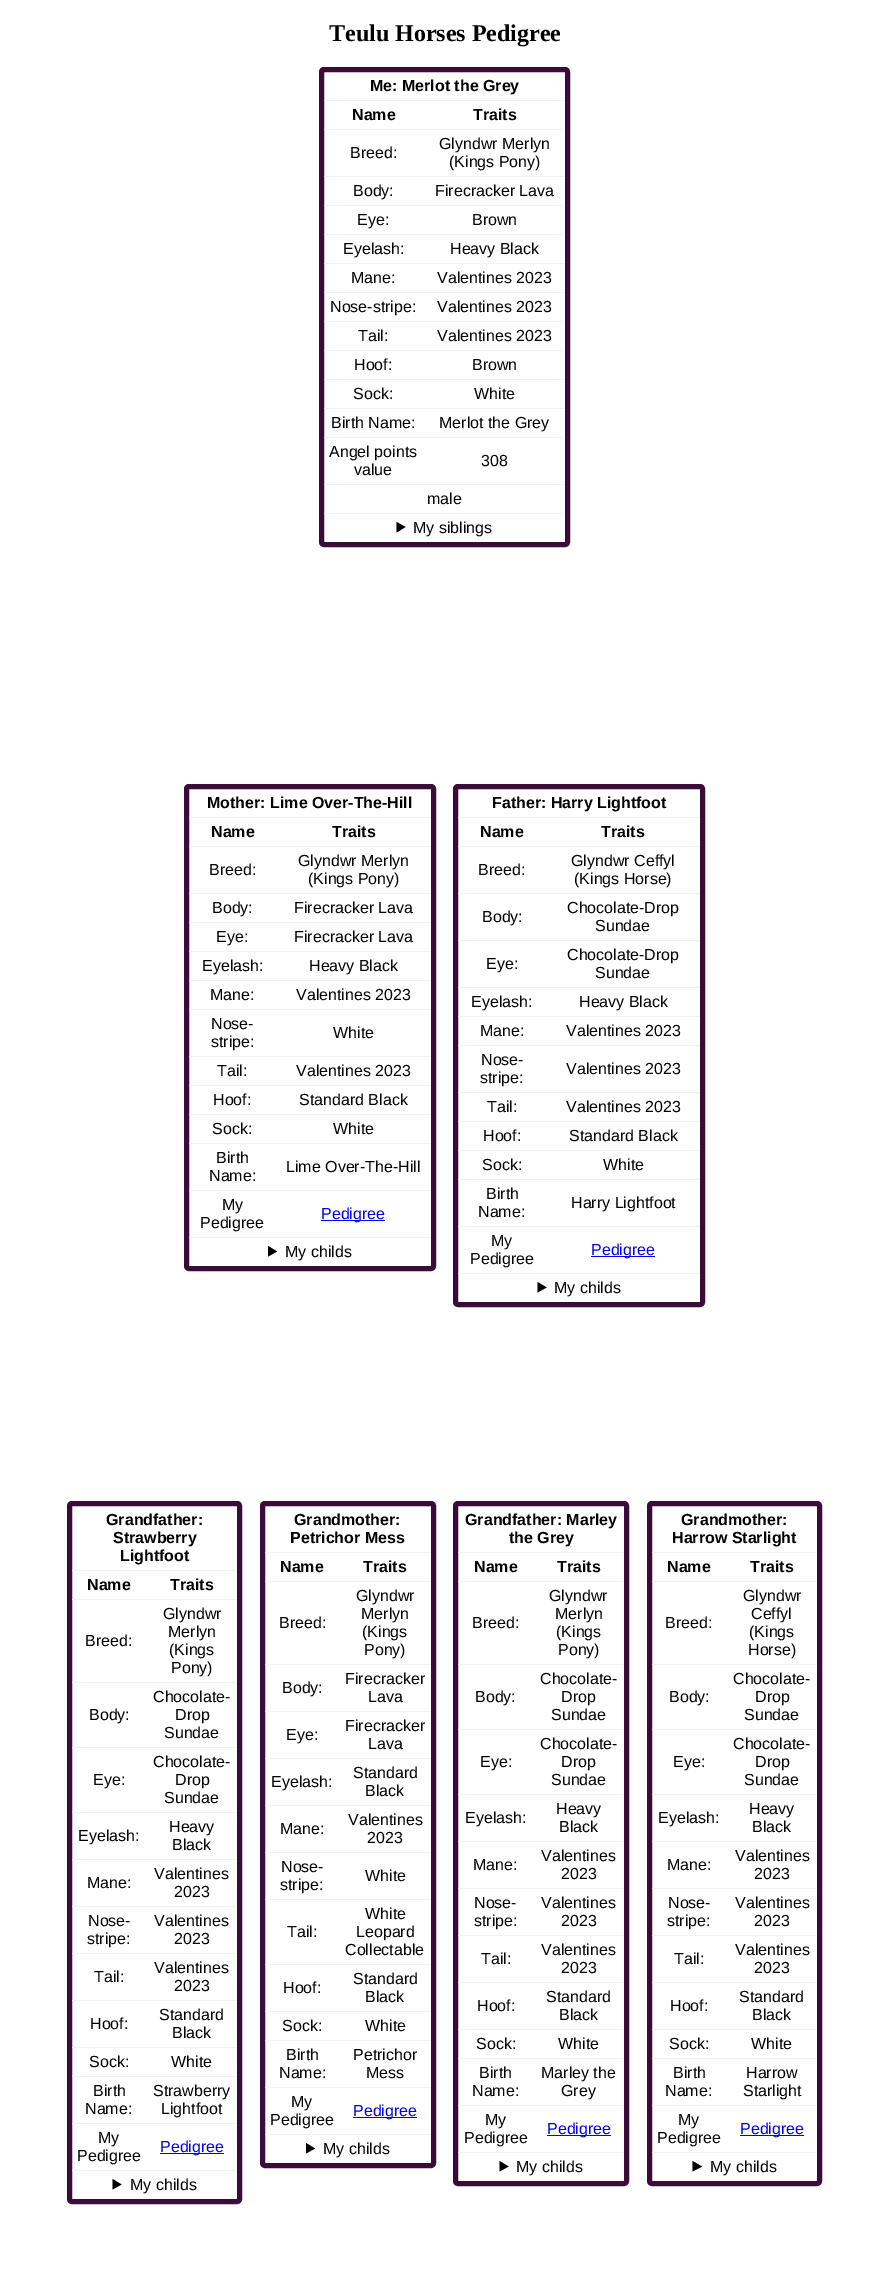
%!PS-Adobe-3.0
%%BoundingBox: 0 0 889 2280
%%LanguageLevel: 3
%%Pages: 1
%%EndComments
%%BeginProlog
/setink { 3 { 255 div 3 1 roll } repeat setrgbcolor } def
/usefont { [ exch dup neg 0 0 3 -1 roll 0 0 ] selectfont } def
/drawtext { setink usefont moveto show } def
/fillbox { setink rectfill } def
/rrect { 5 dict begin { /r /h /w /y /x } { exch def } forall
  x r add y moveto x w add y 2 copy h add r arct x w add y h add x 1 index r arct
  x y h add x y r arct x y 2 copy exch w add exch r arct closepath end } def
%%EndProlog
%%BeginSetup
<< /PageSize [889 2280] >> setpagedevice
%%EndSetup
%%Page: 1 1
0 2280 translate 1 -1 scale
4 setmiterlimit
0 0 889 2280 255 255 255 fillbox
(Teulu Horses Pedigree) 329 41 /LiberationSerif-Bold 24 0 0 0 drawtext
59 11 57 setink
5 setlinewidth
321.5 69.5 246 475 2.5 rrect stroke
324 100 241 1 242 242 242 fillbox
(Me: Merlot the Grey) 370 91 /LiberationSans-Bold 16 0 0 0 drawtext
324 129 241 1 242 242 242 fillbox
(Name) 352 120 /LiberationSans-Bold 16 0 0 0 drawtext
(Traits) 473 120 /LiberationSans-Bold 16 0 0 0 drawtext
324 176 241 1 242 242 242 fillbox
(Breed:) 350 158 /LiberationSans-Regular 16 0 0 0 drawtext
(Glyndwr Merlyn) 439 149 /LiberationSans-Regular 16 0 0 0 drawtext
(\(Kings Pony\)) 449 167 /LiberationSans-Regular 16 0 0 0 drawtext
324 205 241 1 242 242 242 fillbox
(Body:) 353 196 /LiberationSans-Regular 16 0 0 0 drawtext
(Firecracker Lava) 435 196 /LiberationSans-Regular 16 0 0 0 drawtext
324 234 241 1 242 242 242 fillbox
(Eye:) 357 225 /LiberationSans-Regular 16 0 0 0 drawtext
(Brown) 472 225 /LiberationSans-Regular 16 0 0 0 drawtext
324 263 241 1 242 242 242 fillbox
(Eyelash:) 343 254 /LiberationSans-Regular 16 0 0 0 drawtext
(Heavy Black) 450 254 /LiberationSans-Regular 16 0 0 0 drawtext
324 292 241 1 242 242 242 fillbox
(Mane:) 351 283 /LiberationSans-Regular 16 0 0 0 drawtext
(Valentines 2023) 437 283 /LiberationSans-Regular 16 0 0 0 drawtext
324 321 241 1 242 242 242 fillbox
(Nose-stripe:) 330 312 /LiberationSans-Regular 16 0 0 0 drawtext
(Valentines 2023) 437 312 /LiberationSans-Regular 16 0 0 0 drawtext
324 350 241 1 242 242 242 fillbox
(Tail:) 358 341 /LiberationSans-Regular 16 0 0 0 drawtext
(Valentines 2023) 437 341 /LiberationSans-Regular 16 0 0 0 drawtext
324 379 241 1 242 242 242 fillbox
(Hoof:) 354 370 /LiberationSans-Regular 16 0 0 0 drawtext
(Brown) 472 370 /LiberationSans-Regular 16 0 0 0 drawtext
324 408 241 1 242 242 242 fillbox
(Sock:) 353 399 /LiberationSans-Regular 16 0 0 0 drawtext
(White) 474 399 /LiberationSans-Regular 16 0 0 0 drawtext
324 437 241 1 242 242 242 fillbox
(Birth Name:) 331 428 /LiberationSans-Regular 16 0 0 0 drawtext
(Merlot the Grey) 439 428 /LiberationSans-Regular 16 0 0 0 drawtext
324 484 241 1 242 242 242 fillbox
(Angel points) 329 457 /LiberationSans-Regular 16 0 0 0 drawtext
(value) 354 475 /LiberationSans-Regular 16 0 0 0 drawtext
(308) 481 466 /LiberationSans-Regular 16 0 0 0 drawtext
324 513 241 1 242 242 242 fillbox
(male) 427 504 /LiberationSans-Regular 16 0 0 0 drawtext
396.5 522 moveto 405.5 527 lineto 396.5 532.5 lineto closepath fill
(My siblings) 413 533 /LiberationSans-Regular 16 0 0 0 drawtext
59 11 57 setink
186.5 786.5 247 482 2.5 rrect stroke
189 817 242 1 242 242 242 fillbox
(Mother: Lime Over-The-Hill) 207 808 /LiberationSans-Bold 16 0 0 0 drawtext
189 846 242 1 242 242 242 fillbox
(Name) 211 837 /LiberationSans-Bold 16 0 0 0 drawtext
(Traits) 332 837 /LiberationSans-Bold 16 0 0 0 drawtext
189 893 242 1 242 242 242 fillbox
(Breed:) 209 875 /LiberationSans-Regular 16 0 0 0 drawtext
(Glyndwr Merlyn) 298 866 /LiberationSans-Regular 16 0 0 0 drawtext
(\(Kings Pony\)) 308 884 /LiberationSans-Regular 16 0 0 0 drawtext
189 922 242 1 242 242 242 fillbox
(Body:) 212 913 /LiberationSans-Regular 16 0 0 0 drawtext
(Firecracker Lava) 294 913 /LiberationSans-Regular 16 0 0 0 drawtext
189 951 242 1 242 242 242 fillbox
(Eye:) 216 942 /LiberationSans-Regular 16 0 0 0 drawtext
(Firecracker Lava) 294 942 /LiberationSans-Regular 16 0 0 0 drawtext
189 980 242 1 242 242 242 fillbox
(Eyelash:) 202 971 /LiberationSans-Regular 16 0 0 0 drawtext
(Heavy Black) 309 971 /LiberationSans-Regular 16 0 0 0 drawtext
189 1009 242 1 242 242 242 fillbox
(Mane:) 210 1000 /LiberationSans-Regular 16 0 0 0 drawtext
(Valentines 2023) 296 1000 /LiberationSans-Regular 16 0 0 0 drawtext
189 1056 242 1 242 242 242 fillbox
(Nose-) 211 1029 /LiberationSans-Regular 16 0 0 0 drawtext
(stripe:) 211 1047 /LiberationSans-Regular 16 0 0 0 drawtext
(White) 333 1038 /LiberationSans-Regular 16 0 0 0 drawtext
189 1085 242 1 242 242 242 fillbox
(Tail:) 217 1076 /LiberationSans-Regular 16 0 0 0 drawtext
(Valentines 2023) 296 1076 /LiberationSans-Regular 16 0 0 0 drawtext
189 1114 242 1 242 242 242 fillbox
(Hoof:) 213 1105 /LiberationSans-Regular 16 0 0 0 drawtext
(Standard Black) 299 1105 /LiberationSans-Regular 16 0 0 0 drawtext
189 1143 242 1 242 242 242 fillbox
(Sock:) 212 1134 /LiberationSans-Regular 16 0 0 0 drawtext
(White) 333 1134 /LiberationSans-Regular 16 0 0 0 drawtext
189 1190 242 1 242 242 242 fillbox
(Birth) 216 1163 /LiberationSans-Regular 16 0 0 0 drawtext
(Name:) 209 1181 /LiberationSans-Regular 16 0 0 0 drawtext
(Lime Over-The-Hill) 286 1172 /LiberationSans-Regular 16 0 0 0 drawtext
189 1237 242 1 242 242 242 fillbox
(My) 222 1210 /LiberationSans-Regular 16 0 0 0 drawtext
(Pedigree) 200 1228 /LiberationSans-Regular 16 0 0 0 drawtext
321 1220 64 1 0 0 238 fillbox
(Pedigree) 321 1219 /LiberationSans-Regular 16 0 0 238 drawtext
0 0 0 setink
268 1246 moveto 277 1251.5 lineto 268 1256.5 lineto closepath fill
(My childs) 285 1257 /LiberationSans-Regular 16 0 0 0 drawtext
59 11 57 setink
455.5 786.5 247 518 2.5 rrect stroke
458 817 242 1 242 242 242 fillbox
(Father: Harry Lightfoot) 492 808 /LiberationSans-Bold 16 0 0 0 drawtext
458 846 242 1 242 242 242 fillbox
(Name) 480 837 /LiberationSans-Bold 16 0 0 0 drawtext
(Traits) 601 837 /LiberationSans-Bold 16 0 0 0 drawtext
458 893 242 1 242 242 242 fillbox
(Breed:) 478 875 /LiberationSans-Regular 16 0 0 0 drawtext
(Glyndwr Ceffyl) 571 866 /LiberationSans-Regular 16 0 0 0 drawtext
(\(Kings Horse\)) 574 884 /LiberationSans-Regular 16 0 0 0 drawtext
458 940 242 1 242 242 242 fillbox
(Body:) 482 922 /LiberationSans-Regular 16 0 0 0 drawtext
(Chocolate-Drop) 567 913 /LiberationSans-Regular 16 0 0 0 drawtext
(Sundae) 595 931 /LiberationSans-Regular 16 0 0 0 drawtext
458 987 242 1 242 242 242 fillbox
(Eye:) 486 969 /LiberationSans-Regular 16 0 0 0 drawtext
(Chocolate-Drop) 567 960 /LiberationSans-Regular 16 0 0 0 drawtext
(Sundae) 595 978 /LiberationSans-Regular 16 0 0 0 drawtext
458 1016 242 1 242 242 242 fillbox
(Eyelash:) 471 1007 /LiberationSans-Regular 16 0 0 0 drawtext
(Heavy Black) 579 1007 /LiberationSans-Regular 16 0 0 0 drawtext
458 1045 242 1 242 242 242 fillbox
(Mane:) 480 1036 /LiberationSans-Regular 16 0 0 0 drawtext
(Valentines 2023) 566 1036 /LiberationSans-Regular 16 0 0 0 drawtext
458 1092 242 1 242 242 242 fillbox
(Nose-) 481 1065 /LiberationSans-Regular 16 0 0 0 drawtext
(stripe:) 480 1083 /LiberationSans-Regular 16 0 0 0 drawtext
(Valentines 2023) 566 1074 /LiberationSans-Regular 16 0 0 0 drawtext
458 1121 242 1 242 242 242 fillbox
(Tail:) 487 1112 /LiberationSans-Regular 16 0 0 0 drawtext
(Valentines 2023) 566 1112 /LiberationSans-Regular 16 0 0 0 drawtext
458 1150 242 1 242 242 242 fillbox
(Hoof:) 483 1141 /LiberationSans-Regular 16 0 0 0 drawtext
(Standard Black) 569 1141 /LiberationSans-Regular 16 0 0 0 drawtext
458 1179 242 1 242 242 242 fillbox
(Sock:) 482 1170 /LiberationSans-Regular 16 0 0 0 drawtext
(White) 603 1170 /LiberationSans-Regular 16 0 0 0 drawtext
458 1226 242 1 242 242 242 fillbox
(Birth) 486 1199 /LiberationSans-Regular 16 0 0 0 drawtext
(Name:) 478 1217 /LiberationSans-Regular 16 0 0 0 drawtext
(Harry Lightfoot) 571 1208 /LiberationSans-Regular 16 0 0 0 drawtext
458 1273 242 1 242 242 242 fillbox
(My) 491 1246 /LiberationSans-Regular 16 0 0 0 drawtext
(Pedigree) 470 1264 /LiberationSans-Regular 16 0 0 0 drawtext
591 1256 64 1 0 0 238 fillbox
(Pedigree) 591 1255 /LiberationSans-Regular 16 0 0 238 drawtext
0 0 0 setink
537.5 1282 moveto 546.5 1287.5 lineto 537.5 1292.5 lineto closepath fill
(My childs) 554 1293 /LiberationSans-Regular 16 0 0 0 drawtext
59 11 57 setink
69.5 1503.5 170 698 2.5 rrect stroke
72 1570 165 1 242 242 242 fillbox
(Grandfather:) 106 1525 /LiberationSans-Bold 16 0 0 0 drawtext
(Strawberry) 113 1543 /LiberationSans-Bold 16 0 0 0 drawtext
(Lightfoot) 120 1561 /LiberationSans-Bold 16 0 0 0 drawtext
72 1599 165 1 242 242 242 fillbox
(Name) 87 1590 /LiberationSans-Bold 16 0 0 0 drawtext
(Traits) 170 1590 /LiberationSans-Bold 16 0 0 0 drawtext
72 1682 165 1 242 242 242 fillbox
(Breed:) 85 1646 /LiberationSans-Regular 16 0 0 0 drawtext
(Glyndwr) 163 1619 /LiberationSans-Regular 16 0 0 0 drawtext
(Merlyn) 168 1637 /LiberationSans-Regular 16 0 0 0 drawtext
(\(Kings) 169 1655 /LiberationSans-Regular 16 0 0 0 drawtext
(Pony\)) 171 1673 /LiberationSans-Regular 16 0 0 0 drawtext
72 1747 165 1 242 242 242 fillbox
(Body:) 89 1720 /LiberationSans-Regular 16 0 0 0 drawtext
(Chocolate-) 153 1702 /LiberationSans-Regular 16 0 0 0 drawtext
(Drop) 175 1720 /LiberationSans-Regular 16 0 0 0 drawtext
(Sundae) 164 1738 /LiberationSans-Regular 16 0 0 0 drawtext
72 1812 165 1 242 242 242 fillbox
(Eye:) 93 1785 /LiberationSans-Regular 16 0 0 0 drawtext
(Chocolate-) 153 1767 /LiberationSans-Regular 16 0 0 0 drawtext
(Drop) 175 1785 /LiberationSans-Regular 16 0 0 0 drawtext
(Sundae) 164 1803 /LiberationSans-Regular 16 0 0 0 drawtext
72 1859 165 1 242 242 242 fillbox
(Eyelash:) 78 1841 /LiberationSans-Regular 16 0 0 0 drawtext
(Heavy) 169 1832 /LiberationSans-Regular 16 0 0 0 drawtext
(Black) 172 1850 /LiberationSans-Regular 16 0 0 0 drawtext
72 1906 165 1 242 242 242 fillbox
(Mane:) 87 1888 /LiberationSans-Regular 16 0 0 0 drawtext
(Valentines) 154 1879 /LiberationSans-Regular 16 0 0 0 drawtext
(2023) 174 1897 /LiberationSans-Regular 16 0 0 0 drawtext
72 1953 165 1 242 242 242 fillbox
(Nose-) 88 1926 /LiberationSans-Regular 16 0 0 0 drawtext
(stripe:) 87 1944 /LiberationSans-Regular 16 0 0 0 drawtext
(Valentines) 154 1926 /LiberationSans-Regular 16 0 0 0 drawtext
(2023) 174 1944 /LiberationSans-Regular 16 0 0 0 drawtext
72 2000 165 1 242 242 242 fillbox
(Tail:) 94 1982 /LiberationSans-Regular 16 0 0 0 drawtext
(Valentines) 154 1973 /LiberationSans-Regular 16 0 0 0 drawtext
(2023) 174 1991 /LiberationSans-Regular 16 0 0 0 drawtext
72 2047 165 1 242 242 242 fillbox
(Hoof:) 90 2029 /LiberationSans-Regular 16 0 0 0 drawtext
(Standard) 159 2020 /LiberationSans-Regular 16 0 0 0 drawtext
(Black) 172 2038 /LiberationSans-Regular 16 0 0 0 drawtext
72 2076 165 1 242 242 242 fillbox
(Sock:) 89 2067 /LiberationSans-Regular 16 0 0 0 drawtext
(White) 171 2067 /LiberationSans-Regular 16 0 0 0 drawtext
72 2123 165 1 242 242 242 fillbox
(Birth) 93 2096 /LiberationSans-Regular 16 0 0 0 drawtext
(Name:) 85 2114 /LiberationSans-Regular 16 0 0 0 drawtext
(Strawberry) 153 2096 /LiberationSans-Regular 16 0 0 0 drawtext
(Lightfoot) 161 2114 /LiberationSans-Regular 16 0 0 0 drawtext
72 2170 165 1 242 242 242 fillbox
(My) 98 2143 /LiberationSans-Regular 16 0 0 0 drawtext
(Pedigree) 77 2161 /LiberationSans-Regular 16 0 0 0 drawtext
160 2153 64 1 0 0 238 fillbox
(Pedigree) 160 2152 /LiberationSans-Regular 16 0 0 238 drawtext
0 0 0 setink
112.5 2179 moveto 121.5 2184.5 lineto 112.5 2189.5 lineto closepath fill
(My childs) 130 2190 /LiberationSans-Regular 16 0 0 0 drawtext
59 11 57 setink
262.5 1503.5 171 662 2.5 rrect stroke
265 1552 166 1 242 242 242 fillbox
(Grandmother:) 294 1525 /LiberationSans-Bold 16 0 0 0 drawtext
(Petrichor Mess) 290 1543 /LiberationSans-Bold 16 0 0 0 drawtext
265 1581 166 1 242 242 242 fillbox
(Name) 280 1572 /LiberationSans-Bold 16 0 0 0 drawtext
(Traits) 363 1572 /LiberationSans-Bold 16 0 0 0 drawtext
265 1664 166 1 242 242 242 fillbox
(Breed:) 279 1628 /LiberationSans-Regular 16 0 0 0 drawtext
(Glyndwr) 356 1601 /LiberationSans-Regular 16 0 0 0 drawtext
(Merlyn) 361 1619 /LiberationSans-Regular 16 0 0 0 drawtext
(\(Kings) 362 1637 /LiberationSans-Regular 16 0 0 0 drawtext
(Pony\)) 364 1655 /LiberationSans-Regular 16 0 0 0 drawtext
265 1711 166 1 242 242 242 fillbox
(Body:) 282 1693 /LiberationSans-Regular 16 0 0 0 drawtext
(Firecracker) 345 1684 /LiberationSans-Regular 16 0 0 0 drawtext
(Lava) 368 1702 /LiberationSans-Regular 16 0 0 0 drawtext
265 1758 166 1 242 242 242 fillbox
(Eye:) 286 1740 /LiberationSans-Regular 16 0 0 0 drawtext
(Firecracker) 345 1731 /LiberationSans-Regular 16 0 0 0 drawtext
(Lava) 368 1749 /LiberationSans-Regular 16 0 0 0 drawtext
265 1805 166 1 242 242 242 fillbox
(Eyelash:) 271 1787 /LiberationSans-Regular 16 0 0 0 drawtext
(Standard) 353 1778 /LiberationSans-Regular 16 0 0 0 drawtext
(Black) 365 1796 /LiberationSans-Regular 16 0 0 0 drawtext
265 1852 166 1 242 242 242 fillbox
(Mane:) 280 1834 /LiberationSans-Regular 16 0 0 0 drawtext
(Valentines) 348 1825 /LiberationSans-Regular 16 0 0 0 drawtext
(2023) 367 1843 /LiberationSans-Regular 16 0 0 0 drawtext
265 1899 166 1 242 242 242 fillbox
(Nose-) 281 1872 /LiberationSans-Regular 16 0 0 0 drawtext
(stripe:) 280 1890 /LiberationSans-Regular 16 0 0 0 drawtext
(White) 365 1881 /LiberationSans-Regular 16 0 0 0 drawtext
265 1964 166 1 242 242 242 fillbox
(Tail:) 287 1937 /LiberationSans-Regular 16 0 0 0 drawtext
(White) 365 1919 /LiberationSans-Regular 16 0 0 0 drawtext
(Leopard) 356 1937 /LiberationSans-Regular 16 0 0 0 drawtext
(Collectable) 345 1955 /LiberationSans-Regular 16 0 0 0 drawtext
265 2011 166 1 242 242 242 fillbox
(Hoof:) 283 1993 /LiberationSans-Regular 16 0 0 0 drawtext
(Standard) 353 1984 /LiberationSans-Regular 16 0 0 0 drawtext
(Black) 365 2002 /LiberationSans-Regular 16 0 0 0 drawtext
265 2040 166 1 242 242 242 fillbox
(Sock:) 282 2031 /LiberationSans-Regular 16 0 0 0 drawtext
(White) 365 2031 /LiberationSans-Regular 16 0 0 0 drawtext
265 2087 166 1 242 242 242 fillbox
(Birth) 286 2060 /LiberationSans-Regular 16 0 0 0 drawtext
(Name:) 279 2078 /LiberationSans-Regular 16 0 0 0 drawtext
(Petrichor) 353 2060 /LiberationSans-Regular 16 0 0 0 drawtext
(Mess) 366 2078 /LiberationSans-Regular 16 0 0 0 drawtext
265 2134 166 1 242 242 242 fillbox
(My) 291 2107 /LiberationSans-Regular 16 0 0 0 drawtext
(Pedigree) 270 2125 /LiberationSans-Regular 16 0 0 0 drawtext
353 2117 64 1 0 0 238 fillbox
(Pedigree) 353 2116 /LiberationSans-Regular 16 0 0 238 drawtext
0 0 0 setink
306 2143 moveto 315 2148.5 lineto 306 2153.5 lineto closepath fill
(My childs) 323 2154 /LiberationSans-Regular 16 0 0 0 drawtext
59 11 57 setink
455.5 1503.5 171 680 2.5 rrect stroke
458 1552 166 1 242 242 242 fillbox
(Grandfather: Marley) 465 1525 /LiberationSans-Bold 16 0 0 0 drawtext
(the Grey) 509 1543 /LiberationSans-Bold 16 0 0 0 drawtext
458 1581 166 1 242 242 242 fillbox
(Name) 474 1572 /LiberationSans-Bold 16 0 0 0 drawtext
(Traits) 557 1572 /LiberationSans-Bold 16 0 0 0 drawtext
458 1664 166 1 242 242 242 fillbox
(Breed:) 472 1628 /LiberationSans-Regular 16 0 0 0 drawtext
(Glyndwr) 549 1601 /LiberationSans-Regular 16 0 0 0 drawtext
(Merlyn) 555 1619 /LiberationSans-Regular 16 0 0 0 drawtext
(\(Kings) 556 1637 /LiberationSans-Regular 16 0 0 0 drawtext
(Pony\)) 558 1655 /LiberationSans-Regular 16 0 0 0 drawtext
458 1729 166 1 242 242 242 fillbox
(Body:) 475 1702 /LiberationSans-Regular 16 0 0 0 drawtext
(Chocolate-) 540 1684 /LiberationSans-Regular 16 0 0 0 drawtext
(Drop) 561 1702 /LiberationSans-Regular 16 0 0 0 drawtext
(Sundae) 551 1720 /LiberationSans-Regular 16 0 0 0 drawtext
458 1794 166 1 242 242 242 fillbox
(Eye:) 480 1767 /LiberationSans-Regular 16 0 0 0 drawtext
(Chocolate-) 540 1749 /LiberationSans-Regular 16 0 0 0 drawtext
(Drop) 561 1767 /LiberationSans-Regular 16 0 0 0 drawtext
(Sundae) 551 1785 /LiberationSans-Regular 16 0 0 0 drawtext
458 1841 166 1 242 242 242 fillbox
(Eyelash:) 465 1823 /LiberationSans-Regular 16 0 0 0 drawtext
(Heavy) 556 1814 /LiberationSans-Regular 16 0 0 0 drawtext
(Black) 559 1832 /LiberationSans-Regular 16 0 0 0 drawtext
458 1888 166 1 242 242 242 fillbox
(Mane:) 473 1870 /LiberationSans-Regular 16 0 0 0 drawtext
(Valentines) 541 1861 /LiberationSans-Regular 16 0 0 0 drawtext
(2023) 561 1879 /LiberationSans-Regular 16 0 0 0 drawtext
458 1935 166 1 242 242 242 fillbox
(Nose-) 474 1908 /LiberationSans-Regular 16 0 0 0 drawtext
(stripe:) 474 1926 /LiberationSans-Regular 16 0 0 0 drawtext
(Valentines) 541 1908 /LiberationSans-Regular 16 0 0 0 drawtext
(2023) 561 1926 /LiberationSans-Regular 16 0 0 0 drawtext
458 1982 166 1 242 242 242 fillbox
(Tail:) 481 1964 /LiberationSans-Regular 16 0 0 0 drawtext
(Valentines) 541 1955 /LiberationSans-Regular 16 0 0 0 drawtext
(2023) 561 1973 /LiberationSans-Regular 16 0 0 0 drawtext
458 2029 166 1 242 242 242 fillbox
(Hoof:) 477 2011 /LiberationSans-Regular 16 0 0 0 drawtext
(Standard) 546 2002 /LiberationSans-Regular 16 0 0 0 drawtext
(Black) 559 2020 /LiberationSans-Regular 16 0 0 0 drawtext
458 2058 166 1 242 242 242 fillbox
(Sock:) 476 2049 /LiberationSans-Regular 16 0 0 0 drawtext
(White) 558 2049 /LiberationSans-Regular 16 0 0 0 drawtext
458 2105 166 1 242 242 242 fillbox
(Birth) 479 2078 /LiberationSans-Regular 16 0 0 0 drawtext
(Name:) 472 2096 /LiberationSans-Regular 16 0 0 0 drawtext
(Marley the) 541 2078 /LiberationSans-Regular 16 0 0 0 drawtext
(Grey) 561 2096 /LiberationSans-Regular 16 0 0 0 drawtext
458 2152 166 1 242 242 242 fillbox
(My) 485 2125 /LiberationSans-Regular 16 0 0 0 drawtext
(Pedigree) 464 2143 /LiberationSans-Regular 16 0 0 0 drawtext
547 2135 64 1 0 0 238 fillbox
(Pedigree) 547 2134 /LiberationSans-Regular 16 0 0 238 drawtext
0 0 0 setink
499.5 2161 moveto 508.5 2166.5 lineto 499.5 2171.5 lineto closepath fill
(My childs) 516 2172 /LiberationSans-Regular 16 0 0 0 drawtext
59 11 57 setink
649.5 1503.5 170 680 2.5 rrect stroke
652 1552 165 1 242 242 242 fillbox
(Grandmother:) 681 1525 /LiberationSans-Bold 16 0 0 0 drawtext
(Harrow Starlight) 672 1543 /LiberationSans-Bold 16 0 0 0 drawtext
652 1581 165 1 242 242 242 fillbox
(Name) 667 1572 /LiberationSans-Bold 16 0 0 0 drawtext
(Traits) 750 1572 /LiberationSans-Bold 16 0 0 0 drawtext
652 1664 165 1 242 242 242 fillbox
(Breed:) 665 1628 /LiberationSans-Regular 16 0 0 0 drawtext
(Glyndwr) 743 1601 /LiberationSans-Regular 16 0 0 0 drawtext
(Ceffyl) 751 1619 /LiberationSans-Regular 16 0 0 0 drawtext
(\(Kings) 749 1637 /LiberationSans-Regular 16 0 0 0 drawtext
(Horse\)) 748 1655 /LiberationSans-Regular 16 0 0 0 drawtext
652 1729 165 1 242 242 242 fillbox
(Body:) 669 1702 /LiberationSans-Regular 16 0 0 0 drawtext
(Chocolate-) 733 1684 /LiberationSans-Regular 16 0 0 0 drawtext
(Drop) 755 1702 /LiberationSans-Regular 16 0 0 0 drawtext
(Sundae) 744 1720 /LiberationSans-Regular 16 0 0 0 drawtext
652 1794 165 1 242 242 242 fillbox
(Eye:) 673 1767 /LiberationSans-Regular 16 0 0 0 drawtext
(Chocolate-) 733 1749 /LiberationSans-Regular 16 0 0 0 drawtext
(Drop) 755 1767 /LiberationSans-Regular 16 0 0 0 drawtext
(Sundae) 744 1785 /LiberationSans-Regular 16 0 0 0 drawtext
652 1841 165 1 242 242 242 fillbox
(Eyelash:) 658 1823 /LiberationSans-Regular 16 0 0 0 drawtext
(Heavy) 749 1814 /LiberationSans-Regular 16 0 0 0 drawtext
(Black) 752 1832 /LiberationSans-Regular 16 0 0 0 drawtext
652 1888 165 1 242 242 242 fillbox
(Mane:) 667 1870 /LiberationSans-Regular 16 0 0 0 drawtext
(Valentines) 735 1861 /LiberationSans-Regular 16 0 0 0 drawtext
(2023) 754 1879 /LiberationSans-Regular 16 0 0 0 drawtext
652 1935 165 1 242 242 242 fillbox
(Nose-) 668 1908 /LiberationSans-Regular 16 0 0 0 drawtext
(stripe:) 667 1926 /LiberationSans-Regular 16 0 0 0 drawtext
(Valentines) 735 1908 /LiberationSans-Regular 16 0 0 0 drawtext
(2023) 754 1926 /LiberationSans-Regular 16 0 0 0 drawtext
652 1982 165 1 242 242 242 fillbox
(Tail:) 674 1964 /LiberationSans-Regular 16 0 0 0 drawtext
(Valentines) 735 1955 /LiberationSans-Regular 16 0 0 0 drawtext
(2023) 754 1973 /LiberationSans-Regular 16 0 0 0 drawtext
652 2029 165 1 242 242 242 fillbox
(Hoof:) 670 2011 /LiberationSans-Regular 16 0 0 0 drawtext
(Standard) 739 2002 /LiberationSans-Regular 16 0 0 0 drawtext
(Black) 752 2020 /LiberationSans-Regular 16 0 0 0 drawtext
652 2058 165 1 242 242 242 fillbox
(Sock:) 669 2049 /LiberationSans-Regular 16 0 0 0 drawtext
(White) 751 2049 /LiberationSans-Regular 16 0 0 0 drawtext
652 2105 165 1 242 242 242 fillbox
(Birth) 673 2078 /LiberationSans-Regular 16 0 0 0 drawtext
(Name:) 665 2096 /LiberationSans-Regular 16 0 0 0 drawtext
(Harrow) 746 2078 /LiberationSans-Regular 16 0 0 0 drawtext
(Starlight) 743 2096 /LiberationSans-Regular 16 0 0 0 drawtext
652 2152 165 1 242 242 242 fillbox
(My) 678 2125 /LiberationSans-Regular 16 0 0 0 drawtext
(Pedigree) 657 2143 /LiberationSans-Regular 16 0 0 0 drawtext
740 2135 64 1 0 0 238 fillbox
(Pedigree) 740 2134 /LiberationSans-Regular 16 0 0 238 drawtext
0 0 0 setink
692.5 2161 moveto 702 2166.5 lineto 692.5 2171.5 lineto closepath fill
(My childs) 710 2172 /LiberationSans-Regular 16 0 0 0 drawtext
showpage
%%EOF
